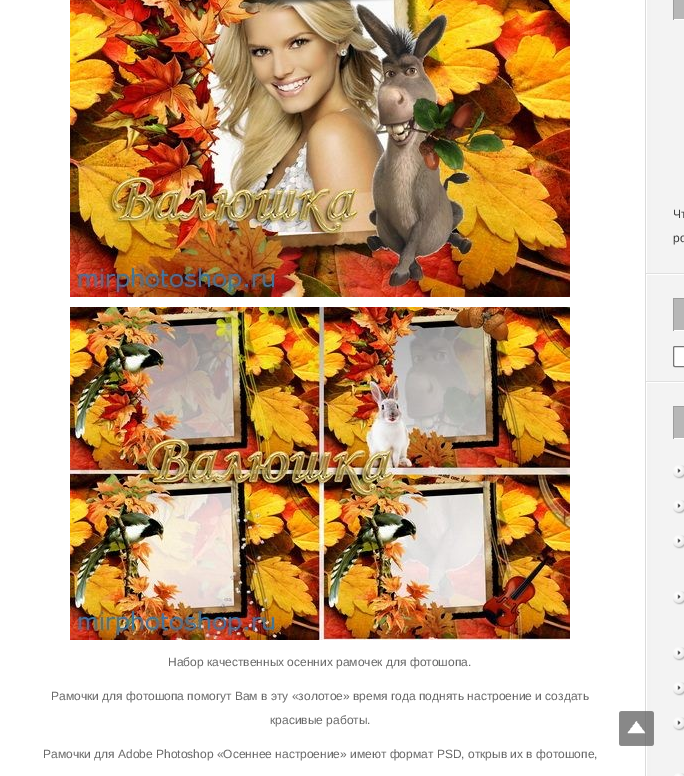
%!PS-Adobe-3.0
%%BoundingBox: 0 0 684 776
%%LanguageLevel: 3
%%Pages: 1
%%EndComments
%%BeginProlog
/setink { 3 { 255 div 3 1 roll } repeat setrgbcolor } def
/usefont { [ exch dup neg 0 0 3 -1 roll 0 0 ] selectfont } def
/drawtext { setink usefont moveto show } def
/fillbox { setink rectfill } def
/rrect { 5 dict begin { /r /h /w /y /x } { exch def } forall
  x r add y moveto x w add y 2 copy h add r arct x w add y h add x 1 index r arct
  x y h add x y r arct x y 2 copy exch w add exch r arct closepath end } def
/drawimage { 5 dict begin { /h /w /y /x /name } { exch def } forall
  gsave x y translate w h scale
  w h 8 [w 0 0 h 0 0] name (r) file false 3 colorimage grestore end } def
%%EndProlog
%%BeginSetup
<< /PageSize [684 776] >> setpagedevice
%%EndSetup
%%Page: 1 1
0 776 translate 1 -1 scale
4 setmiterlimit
0 0 684 776 255 255 255 fillbox
(assets/img1.rgb) 645 0 39 776 drawimage
646 273 38 1 224 224 224 fillbox
674 0 10 19 183 183 183 fillbox
673 19 11 1 255 255 255 fillbox
673 0 1 20 157 157 157 fillbox
(Чт) 673 218 /LiberationSans-Regular 12 61 61 61 drawtext
(ро) 673 242 /LiberationSans-Regular 12 61 61 61 drawtext
646 274 38 1 255 255 255 fillbox
646 381 38 1 224 224 224 fillbox
674 299 10 31 183 183 183 fillbox
673 298 11 1 157 157 157 fillbox
673 330 11 1 255 255 255 fillbox
673 298 1 33 157 157 157 fillbox
255 255 255 setink
673.5 346.5 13 20 1.5 rrect gsave fill grestore
118 118 118 setink
stroke
646 382 38 1 255 255 255 fillbox
674 407 10 31 183 183 183 fillbox
673 406 11 1 157 157 157 fillbox
673 438 11 1 255 255 255 fillbox
673 406 1 33 157 157 157 fillbox
(assets/img2.rgb) 673 465 11 14 drawimage
(assets/img2.rgb) 673 500 11 14 drawimage
(assets/img2.rgb) 673 535 11 14 drawimage
(assets/img2.rgb) 673 591 11 14 drawimage
(assets/img2.rgb) 673 647 11 14 drawimage
(assets/img2.rgb) 673 682 11 14 drawimage
(assets/img2.rgb) 673 717 11 14 drawimage
(assets/img3.rgb) 674 773 10 3 drawimage
(assets/img4.rgb) 70 0 500 297 drawimage
(assets/img5.rgb) 70 307 500 333 drawimage
(Набор качественных осенних рамочек для фотошопа.) 168 666 /LiberationSans-Regular 12 105 105 105 drawtext
(Рамочки для фотошопа помогут Вам в эту «золотое» время года поднять настроение и создать) 51 700 /LiberationSans-Regular 12 105 105 105 drawtext
(красивые работы.) 270 724 /LiberationSans-Regular 12 105 105 105 drawtext
(Рамочки для Adobe Photoshop «Осеннее настроение» имеют формат PSD, открыв их в фотошопе,) 43 758 /LiberationSans-Regular 12 105 105 105 drawtext
(assets/img6.rgb) 619 711 35 35 drawimage
showpage
%%EOF
